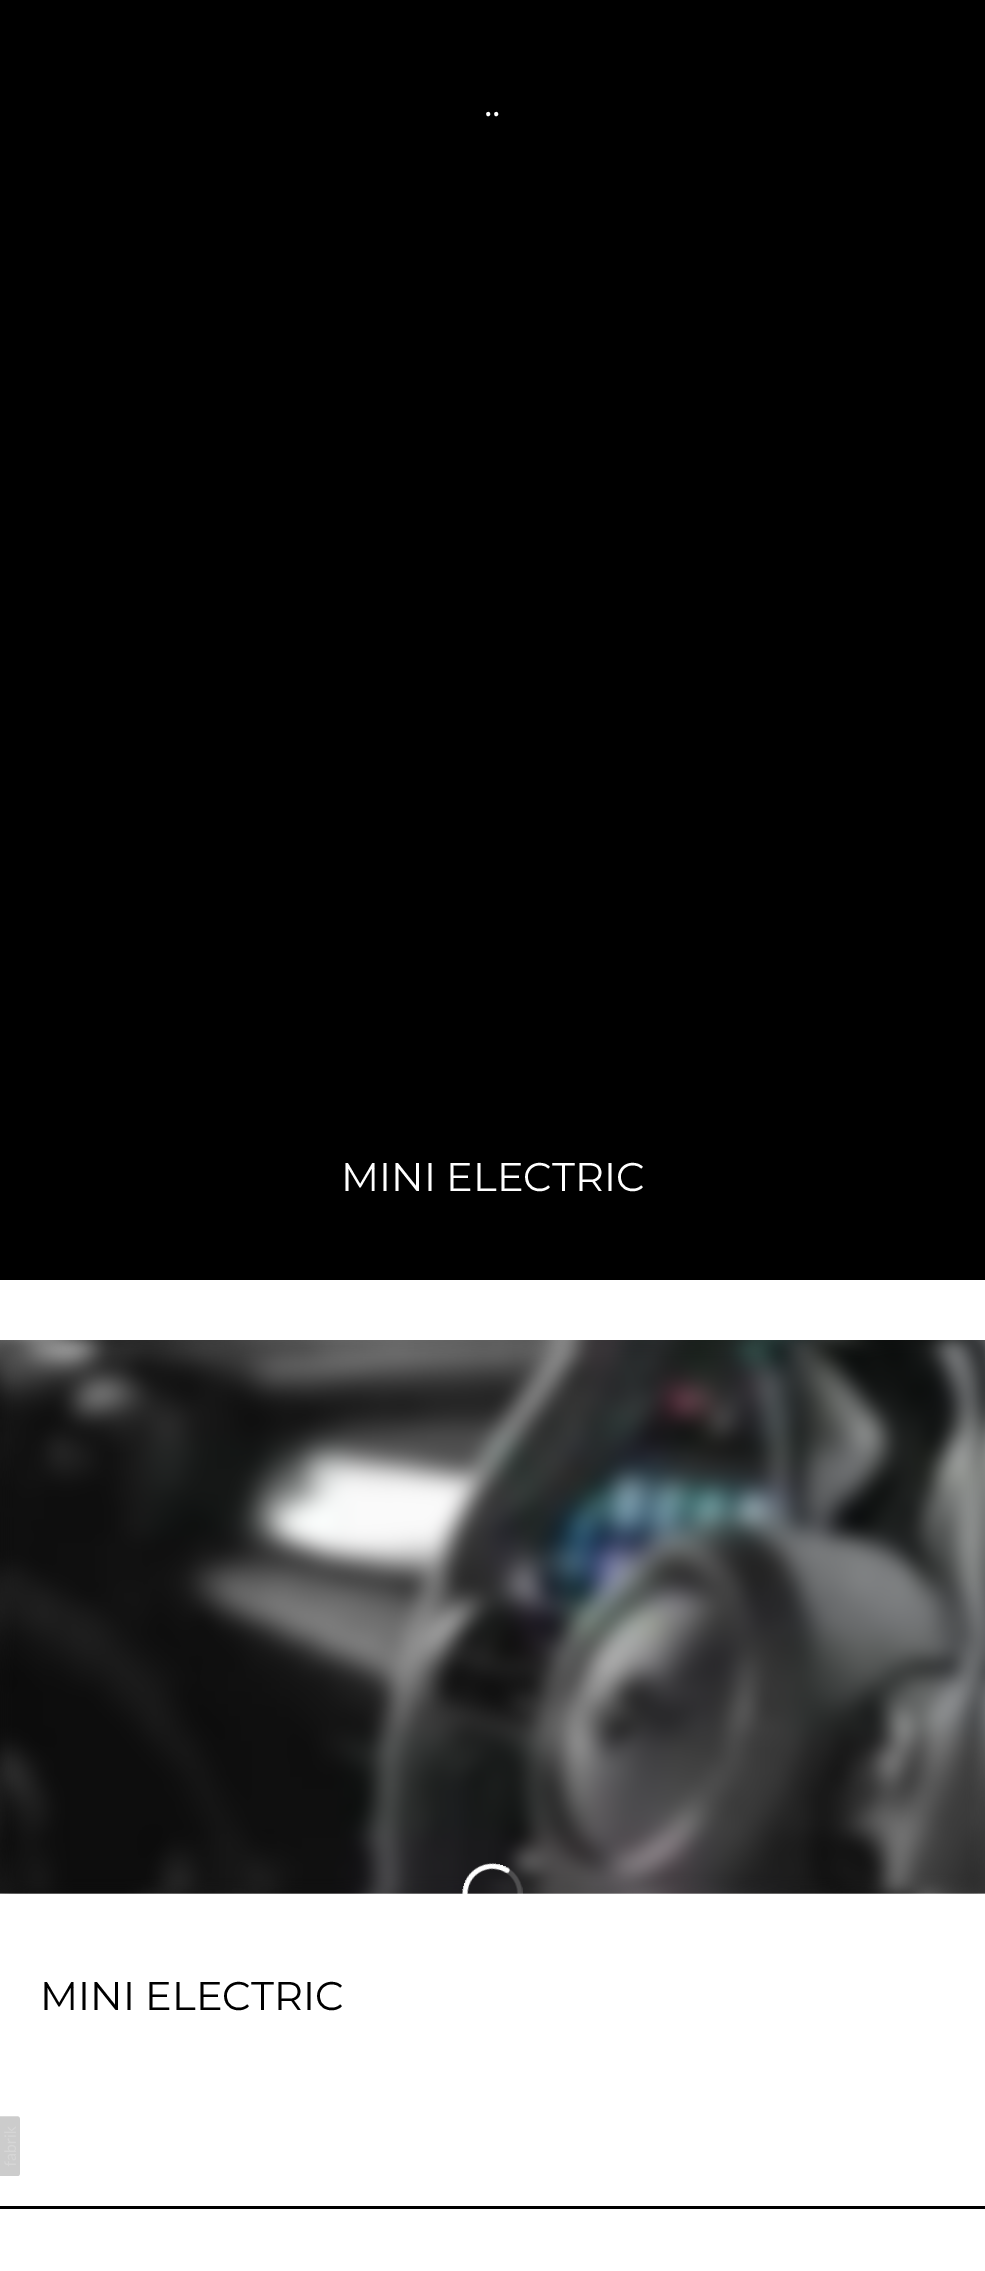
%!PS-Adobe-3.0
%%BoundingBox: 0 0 985 2271
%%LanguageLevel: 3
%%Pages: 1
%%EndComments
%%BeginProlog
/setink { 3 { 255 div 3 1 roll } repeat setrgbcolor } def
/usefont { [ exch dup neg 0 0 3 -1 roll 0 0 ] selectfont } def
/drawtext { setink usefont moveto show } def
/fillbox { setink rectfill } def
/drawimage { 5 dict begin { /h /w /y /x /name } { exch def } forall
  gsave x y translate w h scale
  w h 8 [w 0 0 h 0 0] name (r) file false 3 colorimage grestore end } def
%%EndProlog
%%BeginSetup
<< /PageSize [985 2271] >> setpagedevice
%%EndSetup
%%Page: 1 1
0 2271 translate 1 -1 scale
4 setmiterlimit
0 0 985 2271 255 255 255 fillbox
0 0 985 1280 0 0 0 fillbox
(..) 484 116 /Montserrat-Regular 40 255 255 255 drawtext
(MINI ELECTRIC) 341 1191 /Montserrat-Regular 40 255 255 255 drawtext
(assets/img1.rgb) 0 1340 985 554 drawimage
(MINI ELECTRIC) 40 2010 /Montserrat-Regular 40 0 0 0 drawtext
0 2206 985 3 0 0 0 fillbox
(assets/img2.rgb) 0 2116 20 60 drawimage
showpage
%%EOF
